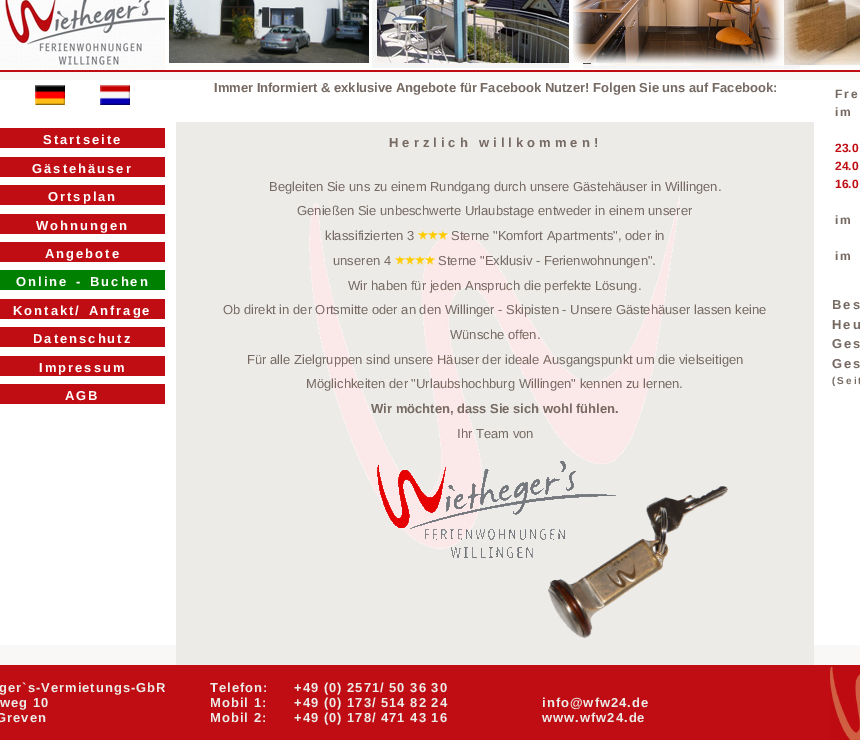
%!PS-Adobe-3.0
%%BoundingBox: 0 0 860 740
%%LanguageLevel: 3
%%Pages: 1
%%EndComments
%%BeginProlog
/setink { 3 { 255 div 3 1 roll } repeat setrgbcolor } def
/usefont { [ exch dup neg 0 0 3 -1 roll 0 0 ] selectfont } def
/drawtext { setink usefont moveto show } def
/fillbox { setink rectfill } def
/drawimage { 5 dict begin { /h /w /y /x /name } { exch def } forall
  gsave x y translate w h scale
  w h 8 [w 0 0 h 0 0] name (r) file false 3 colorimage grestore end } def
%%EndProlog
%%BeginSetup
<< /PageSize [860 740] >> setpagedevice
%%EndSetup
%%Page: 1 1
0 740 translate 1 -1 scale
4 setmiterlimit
0 0 860 740 249 248 247 fillbox
0 70 860 2 192 13 19 fillbox
(assets/img1.rgb) 0 0 860 70 drawimage
0 80 176 565 255 255 255 fillbox
(assets/img2.rgb) 35 85 30 20 drawimage
(assets/img3.rgb) 100 85 30 20 drawimage
0 128 165 20 192 13 19 fillbox
/LiberationSans-Bold 13 usefont
255 255 255 setink
43 144 moveto 2 0 (Startseite) ashow
0 157 165 20 192 13 19 fillbox
255 255 255 setink
32 173 moveto 2 0 (Gästehäuser) ashow
0 185 165 20 192 13 19 fillbox
255 255 255 setink
48 201 moveto 2 0 (Ortsplan) ashow
0 214 165 20 192 13 19 fillbox
255 255 255 setink
36 230 moveto 2 0 (Wohnungen) ashow
0 242 165 20 192 13 19 fillbox
255 255 255 setink
45 258 moveto 2 0 (Angebote) ashow
0 270 165 20 0 128 0 fillbox
255 255 255 setink
16 286 moveto 2 0 32 2 0 (Online - Buchen) awidthshow
0 299 165 20 192 13 19 fillbox
255 255 255 setink
13 315 moveto 2 0 32 2 0 (Kontakt/ Anfrage) awidthshow
0 327 165 20 192 13 19 fillbox
255 255 255 setink
33 343 moveto 2 0 (Datenschutz) ashow
0 356 165 20 192 13 19 fillbox
255 255 255 setink
39 372 moveto 2 0 (Impressum) ashow
0 384 165 20 192 13 19 fillbox
255 255 255 setink
65 400 moveto 2 0 (AGB) ashow
176 122 638 543 236 235 232 fillbox
(assets/img4.rgb) 309 196 371 353 drawimage
176 80 638 42 255 255 255 fillbox
(Immer Informiert & exklusive Angebote für Facebook Nutzer! Folgen Sie uns auf Facebook:) 214 92 /LiberationSans-Bold 13 118 106 99 drawtext
389 147 moveto 4 0 (Herzlich willkommen!) ashow
(Begleiten Sie uns zu einem Rundgang durch unsere Gästehäuser in Willingen.) 269 191 /LiberationSans-Regular 13 118 106 99 drawtext
(Genießen Sie unbeschwerte Urlaubstage entweder in einem unserer) 297 215 /LiberationSans-Regular 13 118 106 99 drawtext
(klassifizierten 3) 325 240 /LiberationSans-Regular 13 118 106 99 drawtext
(assets/img5.rgb) 418 230 10 10 drawimage
(assets/img5.rgb) 428 230 10 10 drawimage
(assets/img6.rgb) 438 230 10 10 drawimage
(Sterne "Komfort Apartments", oder in) 451 240 /LiberationSans-Regular 13 118 106 99 drawtext
(unseren 4) 333 265 /LiberationSans-Regular 13 118 106 99 drawtext
(assets/img7.rgb) 395 255 10 10 drawimage
(assets/img7.rgb) 405 255 10 10 drawimage
(assets/img7.rgb) 415 255 10 10 drawimage
(assets/img8.rgb) 425 255 10 10 drawimage
(Sterne "Exklusiv - Ferienwohnungen".) 438 265 /LiberationSans-Regular 13 118 106 99 drawtext
(Wir haben für jeden Anspruch die perfekte Lösung.) 348 290 /LiberationSans-Regular 13 118 106 99 drawtext
(Ob direkt in der Ortsmitte oder an den Willinger - Skipisten - Unsere Gästehäuser lassen keine) 223 314 /LiberationSans-Regular 13 118 106 99 drawtext
(Wünsche offen.) 450 339 /LiberationSans-Regular 13 118 106 99 drawtext
(Für alle Zielgruppen sind unsere Häuser der ideale Ausgangspunkt um die vielseitigen) 247 364 /LiberationSans-Regular 13 118 106 99 drawtext
(Möglichkeiten der "Urlaubshochburg Willingen" kennen zu lernen.) 306 388 /LiberationSans-Regular 13 118 106 99 drawtext
(Wir möchten, dass Sie sich wohl fühlen.) 371 413 /LiberationSans-Bold 13 118 106 99 drawtext
(Ihr Team von) 457 438 /LiberationSans-Regular 13 118 106 99 drawtext
(assets/img9.rgb) 377 461 239 97 drawimage
(assets/img10.rgb) 548 486 180 152 drawimage
814 80 46 565 255 255 255 fillbox
/LiberationSans-Bold 12 usefont
118 106 99 setink
835 98 moveto 2 0 32 2 0 (Fre) awidthshow
835 116 moveto 2 0 32 2 0 (im) awidthshow
(23.0) 835 152 /LiberationSans-Bold 12 192 13 19 drawtext
(24.0) 835 170 /LiberationSans-Bold 12 192 13 19 drawtext
(16.0) 835 188 /LiberationSans-Bold 12 192 13 19 drawtext
118 106 99 setink
835 224 moveto 2 0 32 2 0 (im) awidthshow
835 260 moveto 2 0 32 2 0 (im) awidthshow
/LiberationSans-Bold 13 usefont
832 309 moveto 2 0 (Bes) ashow
832 329 moveto 2 0 32 2 0 (Heu) awidthshow
832 348 moveto 2 0 32 2 0 (Ges) awidthshow
832 368 moveto 2 0 32 2 0 (Ges) awidthshow
/LiberationSans-Bold 10 usefont
832 384 moveto 2 0 32 2 0 (\(Seit) awidthshow
0 665 860 75 192 13 19 fillbox
/LiberationSans-Bold 13 usefont
236 235 232 setink
-1 692 moveto 1 0 (ger`s-Vermietungs-GbR) ashow
0 707 moveto 1 0 (weg 10) ashow
-4 722 moveto 1 0 (Greven) ashow
210 692 moveto 1 0 (Telefon:) ashow
210 707 moveto 1 0 (Mobil 1:) ashow
210 722 moveto 1 0 (Mobil 2:) ashow
294 692 moveto 1 0 (+49 \(0\) 2571/ 50 36 30) ashow
294 707 moveto 1 0 (+49 \(0\) 173/ 514 82 24) ashow
294 722 moveto 1 0 (+49 \(0\) 178/ 471 43 16) ashow
(assets/img11.rgb) 830 666 30 74 drawimage
542 707 moveto 1 0 (info@wfw24.de) ashow
542 722 moveto 1 0 (www.wfw24.de) ashow
showpage
%%EOF
